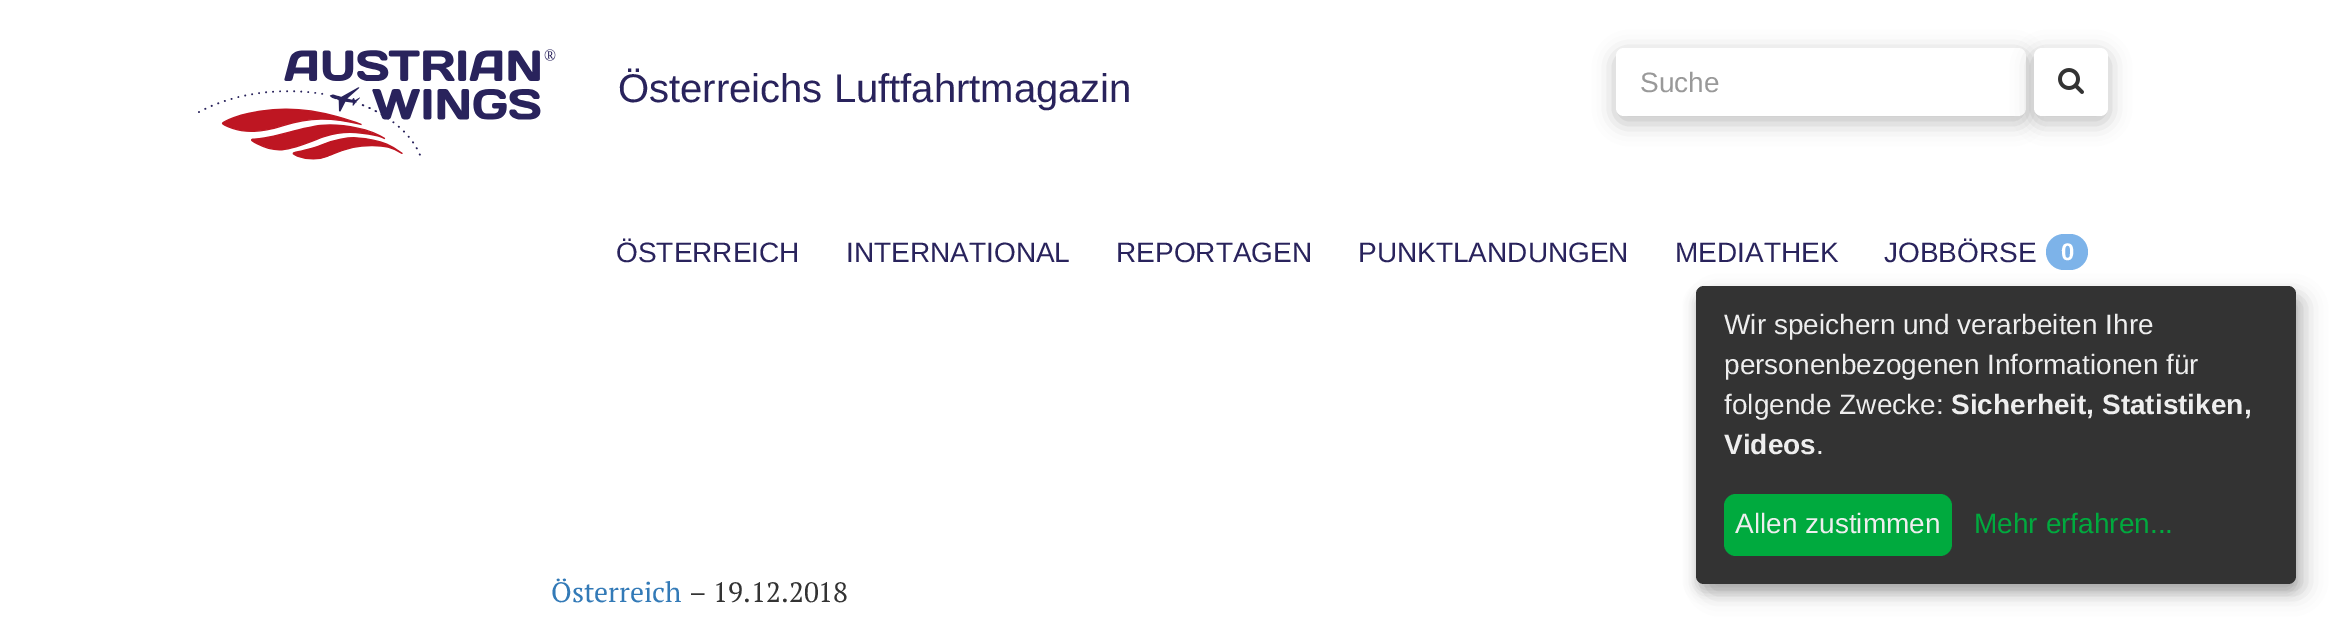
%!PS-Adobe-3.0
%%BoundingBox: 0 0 2336 623
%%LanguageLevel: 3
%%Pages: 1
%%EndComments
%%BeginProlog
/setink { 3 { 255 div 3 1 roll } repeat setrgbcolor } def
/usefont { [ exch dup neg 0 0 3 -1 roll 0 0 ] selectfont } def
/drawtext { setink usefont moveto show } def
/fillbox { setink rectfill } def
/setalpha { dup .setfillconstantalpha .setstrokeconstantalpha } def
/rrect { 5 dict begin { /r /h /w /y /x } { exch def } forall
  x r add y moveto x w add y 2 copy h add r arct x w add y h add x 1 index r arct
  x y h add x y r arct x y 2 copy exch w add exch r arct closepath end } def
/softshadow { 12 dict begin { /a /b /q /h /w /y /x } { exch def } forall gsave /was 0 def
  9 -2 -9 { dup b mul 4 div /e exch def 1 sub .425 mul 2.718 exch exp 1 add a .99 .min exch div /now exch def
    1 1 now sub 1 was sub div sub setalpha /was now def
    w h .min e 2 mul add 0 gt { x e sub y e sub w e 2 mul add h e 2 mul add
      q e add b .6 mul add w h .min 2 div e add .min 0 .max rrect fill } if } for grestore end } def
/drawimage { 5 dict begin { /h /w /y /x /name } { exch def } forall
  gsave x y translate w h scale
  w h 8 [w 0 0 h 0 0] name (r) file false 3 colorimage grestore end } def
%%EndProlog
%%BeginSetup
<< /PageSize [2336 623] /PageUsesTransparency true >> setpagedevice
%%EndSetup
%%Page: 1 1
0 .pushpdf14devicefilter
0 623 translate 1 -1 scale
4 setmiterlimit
0 0 2336 623 255 255 255 fillbox
(assets/img1.rgb) 198 49 358 111 drawimage
(Österreichs Luftfahrtmagazin) 618 102 /LiberationSans-Regular 40 41 35 92 drawtext
139 139 139 setink
1614 52 414 72 10 10 0.5 softshadow
255 255 255 setink
1616 48 410 68 8 rrect fill
(Suche) 1640 92 /LiberationSans-Regular 28 153 153 153 drawtext
139 139 139 setink
2032 52 78 72 10 10 0.5 softshadow
255 255 255 setink
2034 48 74 68 8 rrect fill
(assets/img2.rgb) 2058 68 26 26 drawimage
(ÖSTERREICH) 616 262 /LiberationSans-Regular 28 41 35 92 drawtext
(INTERNATIONAL) 846 262 /LiberationSans-Regular 28 41 35 92 drawtext
(REPORTAGEN) 1116 262 /LiberationSans-Regular 28 41 35 92 drawtext
(PUNKTLANDUNGEN) 1358 262 /LiberationSans-Regular 28 41 35 92 drawtext
(MEDIATHEK) 1675 262 /LiberationSans-Regular 28 41 35 92 drawtext
(JOBBÖRSE) 1884 262 /LiberationSans-Regular 28 41 35 92 drawtext
125 179 233 setink
2046 234 42 36 18 rrect fill
(0) 2061 260 /LiberationSans-Bold 24 255 255 255 drawtext
0 0 0 setink
1706 296 600 298 8 10 0.19 softshadow
1696 294 600 298 8 6 0.2 softshadow
51 51 51 setink
1696 286 600 298 8 rrect fill
(Wir speichern und verarbeiten Ihre) 1724 334 /LiberationSans-Regular 28 238 238 238 drawtext
(personenbezogenen Informationen für) 1724 374 /LiberationSans-Regular 28 238 238 238 drawtext
(folgende Zwecke:) 1724 414 /LiberationSans-Regular 28 238 238 238 drawtext
(Sicherheit, Statistiken,) 1951 414 /LiberationSans-Bold 28 238 238 238 drawtext
(Videos) 1724 454 /LiberationSans-Bold 28 238 238 238 drawtext
(.) 1816 454 /LiberationSans-Regular 28 238 238 238 drawtext
0 170 62 setink
1724 494 228 62 12 rrect fill
(Allen zustimmen) 1735 533 /LiberationSans-Regular 28 238 238 238 drawtext
(Mehr erfahren...) 1974 533 /LiberationSans-Regular 28 0 170 62 drawtext
(Österreich) 551 602 /PTSerif-Regular 28 51 122 183 drawtext
(– 19.12.2018) 689 602 /PTSerif-Regular 28 51 51 51 drawtext
.poppdf14devicefilter showpage
%%EOF
